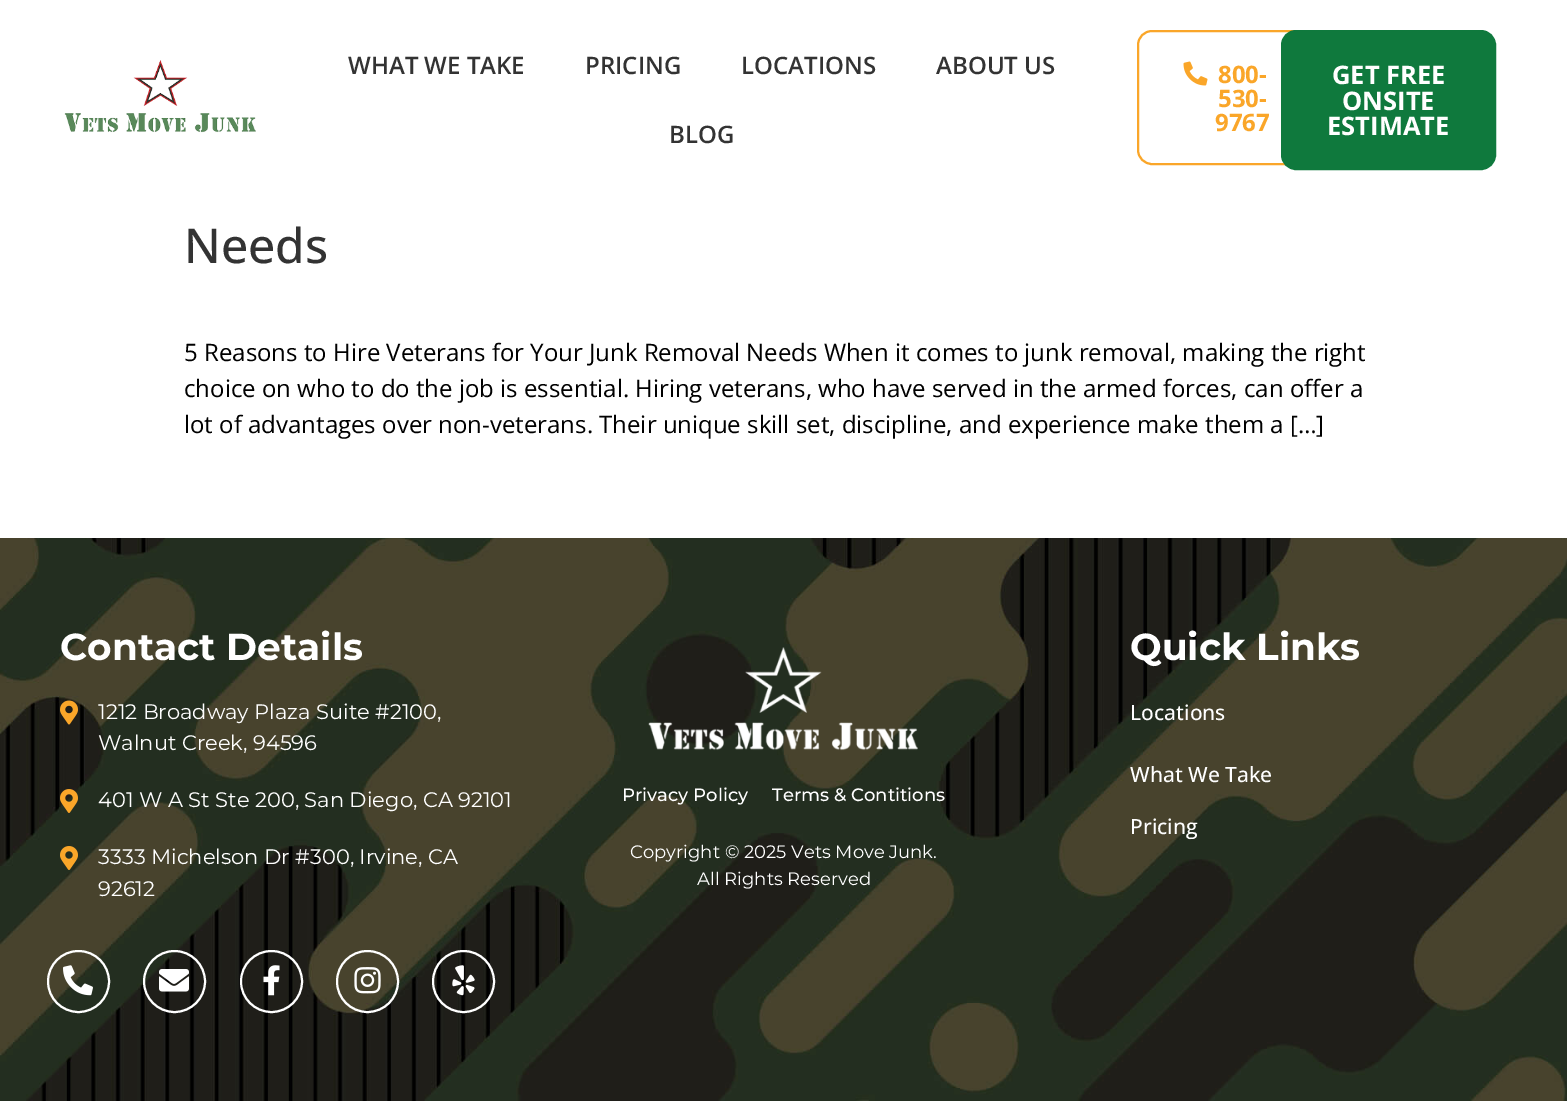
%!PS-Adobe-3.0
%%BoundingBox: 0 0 1567 1101
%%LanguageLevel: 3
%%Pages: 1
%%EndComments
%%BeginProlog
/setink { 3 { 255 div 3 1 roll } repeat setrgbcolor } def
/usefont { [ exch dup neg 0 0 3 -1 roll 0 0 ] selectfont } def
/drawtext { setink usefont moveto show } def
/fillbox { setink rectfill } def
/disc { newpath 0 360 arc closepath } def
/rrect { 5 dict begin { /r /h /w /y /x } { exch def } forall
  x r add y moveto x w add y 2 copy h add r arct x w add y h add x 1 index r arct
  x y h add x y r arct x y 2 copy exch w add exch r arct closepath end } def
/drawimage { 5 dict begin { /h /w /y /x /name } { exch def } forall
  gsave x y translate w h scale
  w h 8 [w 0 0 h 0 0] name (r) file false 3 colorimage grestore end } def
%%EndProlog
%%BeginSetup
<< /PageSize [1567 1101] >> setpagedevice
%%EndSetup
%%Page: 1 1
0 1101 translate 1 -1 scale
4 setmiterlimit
0 0 1567 1101 255 255 255 fillbox
(assets/img1.rgb) 64 60 192 73 drawimage
(WHAT WE TAKE) 348 74 /OpenSans-SemiBold 24 51 51 51 drawtext
(PRICING) 585 74 /OpenSans-SemiBold 24 51 51 51 drawtext
(LOCATIONS) 741 74 /OpenSans-SemiBold 24 51 51 51 drawtext
(ABOUT US) 936 74 /OpenSans-SemiBold 24 51 51 51 drawtext
(BLOG) 669 143 /OpenSans-SemiBold 24 51 51 51 drawtext
250 166 41 setink
2 setlinewidth
1138 31 177 133 14 rrect stroke
(assets/img2.rgb) 1183 61 25 25 drawimage
(800-) 1218 83 /OpenSans-Bold 24 250 166 41 drawtext
(530-) 1218 107 /OpenSans-Bold 24 250 166 41 drawtext
(9767) 1215 131 /OpenSans-Bold 24 250 166 41 drawtext
15 121 61 setink
1282 31 213 138 14 rrect gsave fill grestore
stroke
(GET FREE) 1332 84 /OpenSans-Bold 25.5 255 255 255 drawtext
(ONSITE) 1342 110 /OpenSans-Bold 25.5 255 255 255 drawtext
(ESTIMATE) 1327 135 /OpenSans-Bold 25.5 255 255 255 drawtext
(Needs) 184 263 /OpenSans-Medium 48 51 51 51 drawtext
(5 Reasons to Hire Veterans for Your Junk Removal Needs When it comes to junk removal, making the right) 184 361 /OpenSans-Regular 24 0 0 0 drawtext
(choice on who to do the job is essential. Hiring veterans, who have served in the armed forces, can offer a) 184 397 /OpenSans-Regular 24 0 0 0 drawtext
(lot of advantages over non-veterans. Their unique skill set, discipline, and experience make them a […]) 184 433 /OpenSans-Regular 24 0 0 0 drawtext
(assets/img3.rgb) 0 538 1567 563 drawimage
(Contact Details) 60 660 /Montserrat-Bold 37.5 255 255 255 drawtext
(assets/img4.rgb) 60 700 18 25 drawimage
(1212 Broadway Plaza Suite #2100,) 98 719 /Montserrat-Regular 21 255 255 255 drawtext
(Walnut Creek, 94596) 98 750 /Montserrat-Regular 21 255 255 255 drawtext
(assets/img5.rgb) 60 789 18 24 drawimage
(401 W A St Ste 200, San Diego, CA 92101) 98 807 /Montserrat-Regular 21 255 255 255 drawtext
(assets/img6.rgb) 60 846 18 24 drawimage
(3333 Michelson Dr #300, Irvine, CA) 98 864 /Montserrat-Regular 21 255 255 255 drawtext
(92612) 98 896 /Montserrat-Regular 21 255 255 255 drawtext
78.5 981.5 30.5 disc stroke
(assets/img7.rgb) 63 965 30 31 drawimage
174.5 981.5 30.5 disc stroke
(assets/img8.rgb) 159 969 30 23 drawimage
271.5 981.5 30.5 disc stroke
(assets/img9.rgb) 263 965 17 31 drawimage
367.5 981.5 30.5 disc stroke
(assets/img10.rgb) 354 967 27 27 drawimage
463.5 981.5 30.5 disc stroke
(assets/img11.rgb) 452 965 23 31 drawimage
(assets/img12.rgb) 648 647 270 104 drawimage
(Privacy Policy) 622 801 /Montserrat-Medium 18 255 255 255 drawtext
(Terms & Contitions) 772 801 /Montserrat-Medium 18 255 255 255 drawtext
(Copyright © 2025 Vets Move Junk.) 630 858 /Montserrat-Regular 18 255 255 255 drawtext
(All Rights Reserved) 697 885 /Montserrat-Regular 18 255 255 255 drawtext
(Quick Links) 1130 660 /Montserrat-Bold 37.5 255 255 255 drawtext
(Locations) 1130 720 /OpenSans-Medium 21 255 255 255 drawtext
(What We Take) 1130 782 /OpenSans-Medium 21 255 255 255 drawtext
(Pricing) 1130 834 /OpenSans-Medium 21 255 255 255 drawtext
showpage
%%EOF
